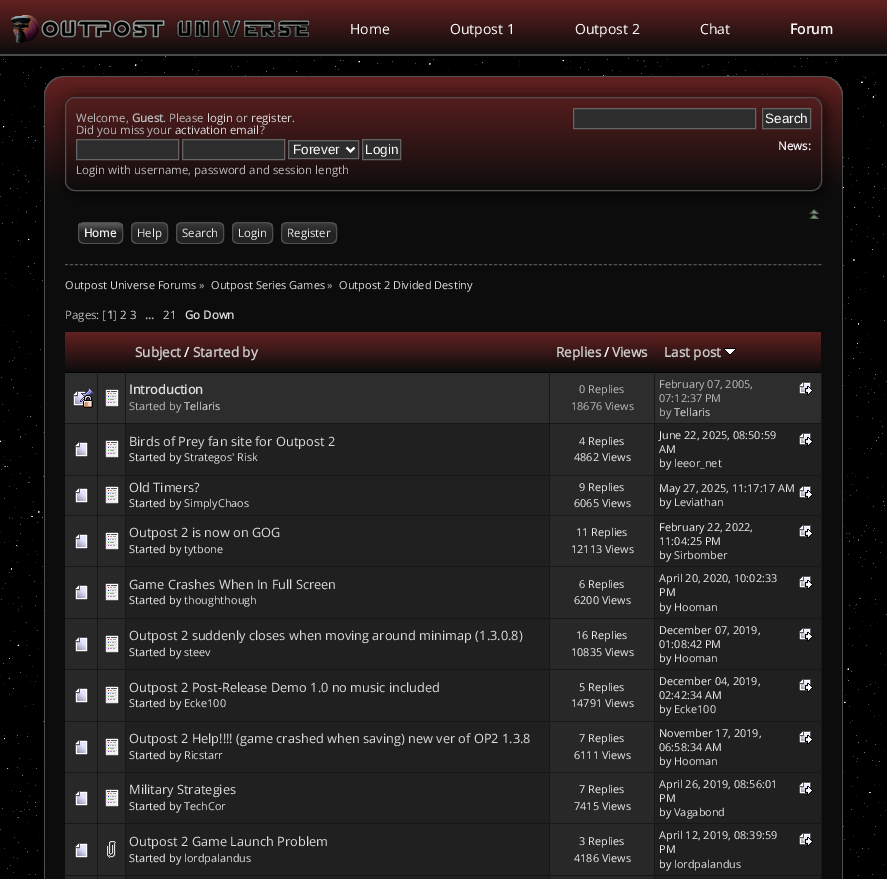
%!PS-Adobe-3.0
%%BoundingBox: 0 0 887 879
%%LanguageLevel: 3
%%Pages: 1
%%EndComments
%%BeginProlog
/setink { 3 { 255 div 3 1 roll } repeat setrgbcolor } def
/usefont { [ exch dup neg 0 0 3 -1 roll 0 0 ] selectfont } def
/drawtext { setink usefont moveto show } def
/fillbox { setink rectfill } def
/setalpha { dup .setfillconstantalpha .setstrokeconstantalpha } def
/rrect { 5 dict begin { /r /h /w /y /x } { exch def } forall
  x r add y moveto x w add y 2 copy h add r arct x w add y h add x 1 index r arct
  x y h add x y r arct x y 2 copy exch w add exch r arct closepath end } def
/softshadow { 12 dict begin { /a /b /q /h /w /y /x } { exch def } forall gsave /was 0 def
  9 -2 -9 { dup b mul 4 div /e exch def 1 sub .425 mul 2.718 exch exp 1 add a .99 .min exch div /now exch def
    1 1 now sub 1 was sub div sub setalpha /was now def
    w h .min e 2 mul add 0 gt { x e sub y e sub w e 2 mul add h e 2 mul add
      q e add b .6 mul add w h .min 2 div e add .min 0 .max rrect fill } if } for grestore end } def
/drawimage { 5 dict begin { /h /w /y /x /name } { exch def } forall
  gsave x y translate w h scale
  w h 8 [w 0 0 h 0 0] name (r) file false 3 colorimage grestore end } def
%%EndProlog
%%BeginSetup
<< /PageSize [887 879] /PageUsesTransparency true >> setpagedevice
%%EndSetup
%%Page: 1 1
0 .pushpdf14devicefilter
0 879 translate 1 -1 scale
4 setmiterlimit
0 0 887 879 255 255 255 fillbox
(assets/img1.rgb) 0 56 887 823 drawimage
gsave 0 0 moveto 887 0 lineto 887 54 lineto 0 54 lineto closepath clip newpath
<< /ShadingType 2 /ColorSpace /DeviceRGB /Coords [444 0 444 54] /Extend [true true] /Function << /FunctionType 2 /Domain [0 1] /C0 [0.392 0.129 0.129] /C1 [0.047 0.047 0.047] /N 1 >> >> shfill grestore
0 54 887 2 74 74 74 fillbox
(assets/img2.rgb) 11 15 299 28 drawimage
(Home) 350 34 /OpenSans-Regular 14 253 253 253 drawtext
(Outpost 1) 450 34 /OpenSans-Regular 14 253 253 253 drawtext
(Outpost 2) 575 34 /OpenSans-Regular 14 253 253 253 drawtext
(Chat) 700 34 /OpenSans-Regular 14 253 253 253 drawtext
(Forum) 790 34 /OpenSans-Bold 14 253 253 253 drawtext
gsave
64 76 moveto 823 76 lineto 834 76 843 85 843 96 curveto 843 244 lineto 44 244 lineto 44 96 lineto 44 85 53 76 64 76 curveto closepath clip newpath
gsave 44 77 moveto 843 77 lineto 843 244 lineto 44 244 lineto closepath clip newpath
<< /ShadingType 2 /ColorSpace /DeviceRGB /Coords [444 77 444 244] /Extend [true true] /Function << /FunctionType 3 /Domain [0 1] /Functions [<< /FunctionType 2 /Domain [0 1] /C0 [0.392 0.129 0.129] /C1 [0.047 0.047 0.047] /N 1 >> << /FunctionType 2 /Domain [0 1] /C0 [0.047 0.047 0.047] /C1 [0.047 0.047 0.047] /N 1 >>] /Bounds [0.7] /Encode [0 1 0 1] >> >> shfill grestore
grestore
79 79 79 setink
64 76 moveto 823 76 lineto 834 76 843 85 843 96 curveto 843 244 lineto 44 244 lineto 44 96 lineto 44 85 53 76 64 76 curveto closepath 64 77 moveto 823 77 lineto 833 77 842 86 842 96 curveto 842 244 lineto 45 244 lineto 45 96 lineto 45 86 54 77 64 77 curveto closepath eofill
(assets/img3.rgb) 809 209 10 10 drawimage
gsave
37 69 moveto 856 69 lineto 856 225 lineto 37 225 lineto closepath 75 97 moveto 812 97 lineto 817.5 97 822 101.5 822 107 curveto 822 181 lineto 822 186.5 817.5 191 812 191 curveto 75 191 lineto 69.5 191 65 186.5 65 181 curveto 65 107 lineto 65 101.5 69.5 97 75 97 curveto closepath eoclip newpath
0 0 0 setink
68 100 757 94 10 10 0.75 softshadow
grestore
65.5 97.5 756 93 9.5 rrect stroke
(Welcome,) 76 122 /OpenSans-Regular 11.5 187 187 187 drawtext
(Guest) 132 122 /OpenSans-Bold 11.5 187 187 187 drawtext
(. Please) 163 122 /OpenSans-Regular 11.5 187 187 187 drawtext
(login) 207 122 /OpenSans-Regular 11.5 221 221 221 drawtext
(or) 236 122 /OpenSans-Regular 11.5 187 187 187 drawtext
(register) 251 122 /OpenSans-Regular 11.5 221 221 221 drawtext
(.) 292 122 /OpenSans-Regular 11.5 187 187 187 drawtext
(Did you miss your) 76 134 /OpenSans-Regular 11.5 187 187 187 drawtext
(activation email) 175 134 /OpenSans-Regular 11.5 221 221 221 drawtext
(?) 260 134 /OpenSans-Regular 11.5 187 187 187 drawtext
46 45 45 setink
76.5 139.5 moveto 178.5 139.5 lineto 178.5 159.5 lineto 76.5 159.5 lineto closepath gsave fill grestore
101 101 101 setink
stroke
46 45 45 setink
182.5 139.5 moveto 284.5 139.5 lineto 284.5 159.5 lineto 182.5 159.5 lineto closepath gsave fill grestore
101 101 101 setink
stroke
46 45 45 setink
288.5 140.5 moveto 358.5 140.5 lineto 358.5 158.5 lineto 288.5 158.5 lineto closepath gsave fill grestore
101 101 101 setink
stroke
255 255 255 setink
2 setlinewidth
346.5 147.5 moveto 350.5 151.5 lineto 354.5 147.5 lineto stroke
(Forever) 293 154 /LiberationSans-Regular 13.5 253 253 253 drawtext
46 45 45 setink
362.5 139.5 moveto 400.5 139.5 lineto 400.5 159.5 lineto 362.5 159.5 lineto closepath gsave fill grestore
101 101 101 setink
1 setlinewidth
stroke
(Login) 365 154 /LiberationSans-Regular 13.5 253 253 253 drawtext
(Login with username, password and session length) 76 174 /OpenSans-Regular 11.5 187 187 187 drawtext
46 45 45 setink
573.5 108.5 moveto 755.5 108.5 lineto 755.5 128.5 lineto 573.5 128.5 lineto closepath gsave fill grestore
101 101 101 setink
stroke
46 45 45 setink
762.5 108.5 moveto 810.5 108.5 lineto 810.5 128.5 lineto 762.5 128.5 lineto closepath gsave fill grestore
101 101 101 setink
stroke
(Search) 765 123 /LiberationSans-Regular 13.5 253 253 253 drawtext
(News:) 778 150 /OpenSans-Bold 11.5 239 235 239 drawtext
gsave
78 222 45 22 6 rrect clip newpath
gsave 78 223 moveto 123 223 lineto 123 243 lineto 78 243 lineto closepath clip newpath
<< /ShadingType 2 /ColorSpace /DeviceRGB /Coords [101 223 101 243] /Extend [true true] /Function << /FunctionType 3 /Domain [0 1] /Functions [<< /FunctionType 2 /Domain [0 1] /C0 [0.376 0.373 0.373] /C1 [0.122 0.122 0.122] /N 1 >> << /FunctionType 2 /Domain [0 1] /C0 [0.122 0.122 0.122] /C1 [0.122 0.122 0.122] /N 1 >>] /Bounds [0.5] /Encode [0 1 0 1] >> >> shfill grestore
grestore
79 79 79 setink
78.5 222.5 44 21 5.5 rrect stroke
(Home) 84 237 /OpenSans-Bold 11.5 239 235 239 drawtext
gsave
131 222 37 22 6 rrect clip newpath
gsave 131 223 moveto 168 223 lineto 168 243 lineto 131 243 lineto closepath clip newpath
<< /ShadingType 2 /ColorSpace /DeviceRGB /Coords [150 223 150 243] /Extend [true true] /Function << /FunctionType 3 /Domain [0 1] /Functions [<< /FunctionType 2 /Domain [0 1] /C0 [0.227 0.227 0.227] /C1 [0.137 0.137 0.137] /N 1 >> << /FunctionType 2 /Domain [0 1] /C0 [0.137 0.137 0.137] /C1 [0.137 0.137 0.137] /N 1 >>] /Bounds [0.5] /Encode [0 1 0 1] >> >> shfill grestore
grestore
79 79 79 setink
131.5 222.5 36 21 5.5 rrect stroke
(Help) 137 237 /OpenSans-Regular 11.5 239 235 239 drawtext
gsave
176 222 48 22 6 rrect clip newpath
gsave 176 223 moveto 224 223 lineto 224 243 lineto 176 243 lineto closepath clip newpath
<< /ShadingType 2 /ColorSpace /DeviceRGB /Coords [200 223 200 243] /Extend [true true] /Function << /FunctionType 3 /Domain [0 1] /Functions [<< /FunctionType 2 /Domain [0 1] /C0 [0.227 0.227 0.227] /C1 [0.137 0.137 0.137] /N 1 >> << /FunctionType 2 /Domain [0 1] /C0 [0.137 0.137 0.137] /C1 [0.137 0.137 0.137] /N 1 >>] /Bounds [0.5] /Encode [0 1 0 1] >> >> shfill grestore
grestore
79 79 79 setink
176.5 222.5 47 21 5.5 rrect stroke
(Search) 182 237 /OpenSans-Regular 11.5 239 235 239 drawtext
gsave
232 222 41 22 6 rrect clip newpath
gsave 232 223 moveto 273 223 lineto 273 243 lineto 232 243 lineto closepath clip newpath
<< /ShadingType 2 /ColorSpace /DeviceRGB /Coords [253 223 253 243] /Extend [true true] /Function << /FunctionType 3 /Domain [0 1] /Functions [<< /FunctionType 2 /Domain [0 1] /C0 [0.227 0.227 0.227] /C1 [0.137 0.137 0.137] /N 1 >> << /FunctionType 2 /Domain [0 1] /C0 [0.137 0.137 0.137] /C1 [0.137 0.137 0.137] /N 1 >>] /Bounds [0.5] /Encode [0 1 0 1] >> >> shfill grestore
grestore
79 79 79 setink
232.5 222.5 40 21 5.5 rrect stroke
(Login) 238 237 /OpenSans-Regular 11.5 239 235 239 drawtext
gsave
281 222 56 22 6 rrect clip newpath
gsave 281 223 moveto 337 223 lineto 337 243 lineto 281 243 lineto closepath clip newpath
<< /ShadingType 2 /ColorSpace /DeviceRGB /Coords [309 223 309 243] /Extend [true true] /Function << /FunctionType 3 /Domain [0 1] /Functions [<< /FunctionType 2 /Domain [0 1] /C0 [0.227 0.227 0.227] /C1 [0.137 0.137 0.137] /N 1 >> << /FunctionType 2 /Domain [0 1] /C0 [0.137 0.137 0.137] /C1 [0.137 0.137 0.137] /N 1 >>] /Bounds [0.5] /Encode [0 1 0 1] >> >> shfill grestore
grestore
79 79 79 setink
281.5 222.5 55 21 5.5 rrect stroke
(Register) 287 237 /OpenSans-Regular 11.5 239 235 239 drawtext
gsave 45 244 moveto 842 244 lineto 842 879 lineto 45 879 lineto closepath clip newpath
<< /ShadingType 2 /ColorSpace /DeviceRGB /Coords [444 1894 444 244] /Extend [true true] /Function << /FunctionType 3 /Domain [0 1] /Functions [<< /FunctionType 2 /Domain [0 1] /C0 [0.22 0.11 0.11] /C1 [0.047 0.047 0.047] /N 1 >> << /FunctionType 2 /Domain [0 1] /C0 [0.047 0.047 0.047] /C1 [0.047 0.047 0.047] /N 1 >>] /Bounds [0.05] /Encode [0 1 0 1] >> >> shfill grestore
79 79 79 setink
44 244 moveto 843 244 lineto 843 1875 lineto 843 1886 834 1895 823 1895 curveto 64 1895 lineto 53 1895 44 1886 44 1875 curveto closepath 45 244 moveto 842 244 lineto 842 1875 lineto 842 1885 833 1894 823 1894 curveto 64 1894 lineto 54 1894 45 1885 45 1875 curveto closepath eofill
84 84 84 setink
[3 1.99] 0 setdash
65 264.5 moveto 822 264.5 lineto stroke
(Outpost Universe Forums) 65 289 /OpenSans-Regular 11 221 221 221 drawtext
(») 199 289 /OpenSans-Regular 11 187 187 187 drawtext
(Outpost Series Games) 211 289 /OpenSans-Regular 11 221 221 221 drawtext
(») 327 289 /OpenSans-Regular 11 187 187 187 drawtext
(Outpost 2 Divided Destiny) 339 289 /OpenSans-Regular 11 221 221 221 drawtext
(Pages: [) 65 319 /OpenSans-Regular 11.5 187 187 187 drawtext
(1) 107 319 /OpenSans-Bold 11.5 187 187 187 drawtext
(]) 113 319 /OpenSans-Regular 11.5 187 187 187 drawtext
(2 3) 120 319 /OpenSans-Regular 11.5 221 221 221 drawtext
(...) 145 319 /OpenSans-Bold 11.5 187 187 187 drawtext
(21) 163 319 /OpenSans-Regular 11.5 221 221 221 drawtext
(Go Down) 185 319 /OpenSans-Bold 11.5 221 221 221 drawtext
gsave 65 332 moveto 821 332 lineto 821 342 lineto 65 342 lineto closepath clip newpath
<< /ShadingType 2 /ColorSpace /DeviceRGB /Coords [443 332 443 371] /Extend [true true] /Function << /FunctionType 2 /Domain [0 1] /C0 [0.392 0.129 0.129] /C1 [0.047 0.047 0.047] /N 1 >> >> shfill grestore
65 372 757 1 0 0 0 fillbox
gsave 75 332 moveto 126 332 lineto 126 372 lineto 65 372 lineto 65 342 lineto 65 336.5 69.5 332 75 332 curveto closepath clip newpath
<< /ShadingType 2 /ColorSpace /DeviceRGB /Coords [96 332 96 372] /Extend [true true] /Function << /FunctionType 2 /Domain [0 1] /C0 [0.392 0.129 0.129] /C1 [0.047 0.047 0.047] /N 1 >> >> shfill grestore
gsave 126 342 moveto 549 342 lineto 549 371 lineto 126 371 lineto closepath clip newpath
<< /ShadingType 2 /ColorSpace /DeviceRGB /Coords [338 332 338 372] /Extend [true true] /Function << /FunctionType 2 /Domain [0 1] /C0 [0.392 0.129 0.129] /C1 [0.047 0.047 0.047] /N 1 >> >> shfill grestore
(Subject) 135 357 /OpenSans-Bold 13.5 204 204 204 drawtext
(/) 184 357 /OpenSans-Bold 13.5 253 253 253 drawtext
(Started by) 193 357 /OpenSans-Bold 13.5 204 204 204 drawtext
gsave 549 342 moveto 655 342 lineto 655 371 lineto 549 371 lineto closepath clip newpath
<< /ShadingType 2 /ColorSpace /DeviceRGB /Coords [602 332 602 372] /Extend [true true] /Function << /FunctionType 2 /Domain [0 1] /C0 [0.392 0.129 0.129] /C1 [0.047 0.047 0.047] /N 1 >> >> shfill grestore
(Replies) 556 357 /OpenSans-Bold 13.5 204 204 204 drawtext
(/) 604 357 /OpenSans-Bold 13.5 253 253 253 drawtext
(Views) 612 357 /OpenSans-Bold 13.5 204 204 204 drawtext
gsave 655 332 moveto 811 332 lineto 816.5 332 821 336.5 821 342 curveto 821 372 lineto 655 372 lineto closepath clip newpath
<< /ShadingType 2 /ColorSpace /DeviceRGB /Coords [738 332 738 372] /Extend [true true] /Function << /FunctionType 2 /Domain [0 1] /C0 [0.392 0.129 0.129] /C1 [0.047 0.047 0.047] /N 1 >> >> shfill grestore
(Last post) 664 357 /OpenSans-Bold 13.5 204 204 204 drawtext
(assets/img4.rgb) 724 348 12 7 drawimage
65 876 61 3 40 40 40 fillbox
97 875 1 4 23 23 23 fillbox
655 876 166 3 32 32 32 fillbox
821 372 1 507 23 23 23 fillbox
125 875 1 4 23 23 23 fillbox
126 876 423 3 32 32 32 fillbox
549 876 106 3 40 40 40 fillbox
549 875 1 4 23 23 23 fillbox
654 875 1 4 23 23 23 fillbox
65 373 32 50 46 45 45 fillbox
654 875 168 1 23 23 23 fillbox
654 823 1 53 23 23 23 fillbox
654 823 168 1 23 23 23 fillbox
654 772 1 52 23 23 23 fillbox
654 772 168 1 23 23 23 fillbox
654 721 1 52 23 23 23 fillbox
654 721 168 1 23 23 23 fillbox
654 669 1 53 23 23 23 fillbox
654 669 168 1 23 23 23 fillbox
654 618 1 52 23 23 23 fillbox
654 618 168 1 23 23 23 fillbox
654 566 1 53 23 23 23 fillbox
654 566 168 1 23 23 23 fillbox
654 515 1 52 23 23 23 fillbox
654 515 168 1 23 23 23 fillbox
654 475 1 41 23 23 23 fillbox
654 475 168 1 23 23 23 fillbox
654 423 1 53 23 23 23 fillbox
654 423 168 1 23 23 23 fillbox
654 372 1 52 23 23 23 fillbox
549 875 106 1 23 23 23 fillbox
549 823 1 53 23 23 23 fillbox
549 823 106 1 23 23 23 fillbox
549 772 1 52 23 23 23 fillbox
549 772 106 1 23 23 23 fillbox
549 721 1 52 23 23 23 fillbox
549 721 106 1 23 23 23 fillbox
549 669 1 53 23 23 23 fillbox
549 669 106 1 23 23 23 fillbox
549 618 1 52 23 23 23 fillbox
549 618 106 1 23 23 23 fillbox
549 566 1 53 23 23 23 fillbox
549 566 106 1 23 23 23 fillbox
549 515 1 52 23 23 23 fillbox
549 515 106 1 23 23 23 fillbox
549 475 1 41 23 23 23 fillbox
549 475 106 1 23 23 23 fillbox
549 423 1 53 23 23 23 fillbox
549 423 106 1 23 23 23 fillbox
549 372 1 52 23 23 23 fillbox
125 875 425 1 23 23 23 fillbox
125 823 1 53 23 23 23 fillbox
125 823 425 1 23 23 23 fillbox
125 772 1 52 23 23 23 fillbox
125 772 425 1 23 23 23 fillbox
125 721 1 52 23 23 23 fillbox
125 721 425 1 23 23 23 fillbox
125 669 1 53 23 23 23 fillbox
125 669 425 1 23 23 23 fillbox
125 618 1 52 23 23 23 fillbox
125 618 425 1 23 23 23 fillbox
125 566 1 53 23 23 23 fillbox
125 566 425 1 23 23 23 fillbox
125 515 1 52 23 23 23 fillbox
125 515 425 1 23 23 23 fillbox
125 475 1 41 23 23 23 fillbox
125 475 425 1 23 23 23 fillbox
125 423 1 53 23 23 23 fillbox
125 423 425 1 23 23 23 fillbox
125 372 1 52 23 23 23 fillbox
97 875 29 1 23 23 23 fillbox
97 823 1 53 23 23 23 fillbox
97 823 29 1 23 23 23 fillbox
97 772 1 52 23 23 23 fillbox
97 772 29 1 23 23 23 fillbox
97 721 1 52 23 23 23 fillbox
97 721 29 1 23 23 23 fillbox
97 669 1 53 23 23 23 fillbox
97 669 29 1 23 23 23 fillbox
97 618 1 52 23 23 23 fillbox
97 618 29 1 23 23 23 fillbox
97 566 1 53 23 23 23 fillbox
97 566 29 1 23 23 23 fillbox
97 515 1 52 23 23 23 fillbox
97 515 29 1 23 23 23 fillbox
97 475 1 41 23 23 23 fillbox
97 475 29 1 23 23 23 fillbox
97 423 1 53 23 23 23 fillbox
97 423 29 1 23 23 23 fillbox
97 372 1 52 23 23 23 fillbox
65 423 33 1 23 23 23 fillbox
(assets/img5.rgb) 73 388 21 20 drawimage
98 373 27 50 46 45 45 fillbox
(assets/img6.rgb) 105 389 14 18 drawimage
126 373 423 50 46 45 45 fillbox
(Introduction) 129 394 /OpenSans-Bold 12.8 221 221 221 drawtext
(Started by) 129 410 /OpenSans-Regular 10.9 187 187 187 drawtext
(Tellaris) 184 410 /OpenSans-Regular 10.9 221 221 221 drawtext
550 373 104 50 46 45 45 fillbox
(0 Replies) 579 393 /OpenSans-Regular 10.9 187 187 187 drawtext
(18676 Views) 571 410 /OpenSans-Regular 10.9 187 187 187 drawtext
655 373 166 50 46 45 45 fillbox
(February 07, 2005,) 659 388 /OpenSans-Regular 10.9 187 187 187 drawtext
(assets/img7.rgb) 799 382 14 13 drawimage
(07:12:37 PM) 659 402 /OpenSans-Regular 10.9 187 187 187 drawtext
(by) 659 416 /OpenSans-Regular 10.9 187 187 187 drawtext
(Tellaris) 674 416 /OpenSans-Regular 10.9 221 221 221 drawtext
65 424 32 51 40 40 40 fillbox
65 475 33 1 23 23 23 fillbox
(assets/img8.rgb) 75 442 13 15 drawimage
98 424 27 51 40 40 40 fillbox
(assets/img9.rgb) 105 440 14 18 drawimage
126 424 423 51 32 32 32 fillbox
(Birds of Prey fan site for Outpost 2) 129 446 /OpenSans-Regular 12.8 221 221 221 drawtext
(Started by) 129 461 /OpenSans-Regular 10.9 239 235 239 drawtext
(Strategos' Risk) 184 461 /OpenSans-Regular 10.9 221 221 221 drawtext
550 424 104 51 40 40 40 fillbox
(4 Replies) 579 445 /OpenSans-Regular 10.9 239 235 239 drawtext
(4862 Views) 574 461 /OpenSans-Regular 10.9 239 235 239 drawtext
655 424 166 51 32 32 32 fillbox
(June 22, 2025, 08:50:59) 659 439 /OpenSans-Regular 10.9 239 235 239 drawtext
(assets/img10.rgb) 799 433 14 13 drawimage
(AM) 659 453 /OpenSans-Regular 10.9 239 235 239 drawtext
(by) 659 467 /OpenSans-Regular 10.9 239 235 239 drawtext
(leeor_net) 674 467 /OpenSans-Regular 10.9 221 221 221 drawtext
65 476 32 39 40 40 40 fillbox
65 515 33 1 23 23 23 fillbox
(assets/img8.rgb) 75 488 13 15 drawimage
98 476 27 39 40 40 40 fillbox
(assets/img9.rgb) 105 486 14 18 drawimage
126 476 423 39 32 32 32 fillbox
(Old Timers?) 129 492 /OpenSans-Regular 12.8 221 221 221 drawtext
(Started by) 129 507 /OpenSans-Regular 10.9 239 235 239 drawtext
(SimplyChaos) 184 507 /OpenSans-Regular 10.9 221 221 221 drawtext
550 476 104 39 40 40 40 fillbox
(9 Replies) 579 491 /OpenSans-Regular 10.9 239 235 239 drawtext
(6065 Views) 574 507 /OpenSans-Regular 10.9 239 235 239 drawtext
655 476 166 39 32 32 32 fillbox
(May 27, 2025, 11:17:17 AM) 659 492 /OpenSans-Regular 10.9 239 235 239 drawtext
(assets/img10.rgb) 799 486 14 13 drawimage
(by) 659 506 /OpenSans-Regular 10.9 239 235 239 drawtext
(Leviathan) 674 506 /OpenSans-Regular 10.9 221 221 221 drawtext
65 516 32 50 40 40 40 fillbox
65 566 33 1 23 23 23 fillbox
(assets/img8.rgb) 75 534 13 15 drawimage
98 516 27 50 40 40 40 fillbox
(assets/img9.rgb) 105 532 14 18 drawimage
126 516 423 50 32 32 32 fillbox
(Outpost 2 is now on GOG) 129 537 /OpenSans-Regular 12.8 221 221 221 drawtext
(Started by) 129 553 /OpenSans-Regular 10.9 239 235 239 drawtext
(tytbone) 184 553 /OpenSans-Regular 10.9 221 221 221 drawtext
550 516 104 50 40 40 40 fillbox
(11 Replies) 576 536 /OpenSans-Regular 10.9 239 235 239 drawtext
(12113 Views) 571 553 /OpenSans-Regular 10.9 239 235 239 drawtext
655 516 166 50 32 32 32 fillbox
(February 22, 2022,) 659 531 /OpenSans-Regular 10.9 239 235 239 drawtext
(assets/img10.rgb) 799 525 14 13 drawimage
(11:04:25 PM) 659 545 /OpenSans-Regular 10.9 239 235 239 drawtext
(by) 659 559 /OpenSans-Regular 10.9 239 235 239 drawtext
(Sirbomber) 674 559 /OpenSans-Regular 10.9 221 221 221 drawtext
65 567 32 51 40 40 40 fillbox
65 618 33 1 23 23 23 fillbox
(assets/img8.rgb) 75 585 13 15 drawimage
98 567 27 51 40 40 40 fillbox
(assets/img9.rgb) 105 583 14 18 drawimage
126 567 423 51 32 32 32 fillbox
(Game Crashes When In Full Screen) 129 589 /OpenSans-Regular 12.8 221 221 221 drawtext
(Started by) 129 604 /OpenSans-Regular 10.9 239 235 239 drawtext
(thoughthough) 184 604 /OpenSans-Regular 10.9 221 221 221 drawtext
550 567 104 51 40 40 40 fillbox
(6 Replies) 579 588 /OpenSans-Regular 10.9 239 235 239 drawtext
(6200 Views) 574 604 /OpenSans-Regular 10.9 239 235 239 drawtext
655 567 166 51 32 32 32 fillbox
(April 20, 2020, 10:02:33) 659 582 /OpenSans-Regular 10.9 239 235 239 drawtext
(assets/img10.rgb) 799 576 14 13 drawimage
(PM) 659 596 /OpenSans-Regular 10.9 239 235 239 drawtext
(by) 659 611 /OpenSans-Regular 10.9 239 235 239 drawtext
(Hooman) 674 611 /OpenSans-Regular 10.9 221 221 221 drawtext
65 619 32 50 40 40 40 fillbox
65 669 33 1 23 23 23 fillbox
(assets/img8.rgb) 75 637 13 15 drawimage
98 619 27 50 40 40 40 fillbox
(assets/img9.rgb) 105 635 14 18 drawimage
126 619 423 50 32 32 32 fillbox
(Outpost 2 suddenly closes when moving around minimap \(1.3.0.8\)) 129 640 /OpenSans-Regular 12.8 221 221 221 drawtext
(Started by) 129 656 /OpenSans-Regular 10.9 239 235 239 drawtext
(steev) 184 656 /OpenSans-Regular 10.9 221 221 221 drawtext
550 619 104 50 40 40 40 fillbox
(16 Replies) 576 639 /OpenSans-Regular 10.9 239 235 239 drawtext
(10835 Views) 571 656 /OpenSans-Regular 10.9 239 235 239 drawtext
655 619 166 50 32 32 32 fillbox
(December 07, 2019,) 659 634 /OpenSans-Regular 10.9 239 235 239 drawtext
(assets/img10.rgb) 799 628 14 13 drawimage
(01:08:42 PM) 659 648 /OpenSans-Regular 10.9 239 235 239 drawtext
(by) 659 662 /OpenSans-Regular 10.9 239 235 239 drawtext
(Hooman) 674 662 /OpenSans-Regular 10.9 221 221 221 drawtext
65 670 32 51 40 40 40 fillbox
65 721 33 1 23 23 23 fillbox
(assets/img8.rgb) 75 688 13 15 drawimage
98 670 27 51 40 40 40 fillbox
(assets/img9.rgb) 105 686 14 18 drawimage
126 670 423 51 32 32 32 fillbox
(Outpost 2 Post-Release Demo 1.0 no music included) 129 692 /OpenSans-Regular 12.8 221 221 221 drawtext
(Started by) 129 707 /OpenSans-Regular 10.9 239 235 239 drawtext
(Ecke100) 184 707 /OpenSans-Regular 10.9 221 221 221 drawtext
550 670 104 51 40 40 40 fillbox
(5 Replies) 579 691 /OpenSans-Regular 10.9 239 235 239 drawtext
(14791 Views) 571 707 /OpenSans-Regular 10.9 239 235 239 drawtext
655 670 166 51 32 32 32 fillbox
(December 04, 2019,) 659 685 /OpenSans-Regular 10.9 239 235 239 drawtext
(assets/img10.rgb) 799 679 14 13 drawimage
(02:42:34 AM) 659 699 /OpenSans-Regular 10.9 239 235 239 drawtext
(by) 659 713 /OpenSans-Regular 10.9 239 235 239 drawtext
(Ecke100) 674 713 /OpenSans-Regular 10.9 221 221 221 drawtext
65 722 32 50 40 40 40 fillbox
65 772 33 1 23 23 23 fillbox
(assets/img8.rgb) 75 740 13 15 drawimage
98 722 27 50 40 40 40 fillbox
(assets/img9.rgb) 105 738 14 18 drawimage
126 722 423 50 32 32 32 fillbox
(Outpost 2 Help!!!! \(game crashed when saving\) new ver of OP2 1.3.8) 129 743 /OpenSans-Regular 12.8 221 221 221 drawtext
(Started by) 129 759 /OpenSans-Regular 10.9 239 235 239 drawtext
(Ricstarr) 184 759 /OpenSans-Regular 10.9 221 221 221 drawtext
550 722 104 50 40 40 40 fillbox
(7 Replies) 579 742 /OpenSans-Regular 10.9 239 235 239 drawtext
(6111 Views) 574 759 /OpenSans-Regular 10.9 239 235 239 drawtext
655 722 166 50 32 32 32 fillbox
(November 17, 2019,) 659 737 /OpenSans-Regular 10.9 239 235 239 drawtext
(assets/img10.rgb) 799 731 14 13 drawimage
(06:58:34 AM) 659 751 /OpenSans-Regular 10.9 239 235 239 drawtext
(by) 659 765 /OpenSans-Regular 10.9 239 235 239 drawtext
(Hooman) 674 765 /OpenSans-Regular 10.9 221 221 221 drawtext
65 773 32 50 40 40 40 fillbox
65 823 33 1 23 23 23 fillbox
(assets/img8.rgb) 75 791 13 15 drawimage
98 773 27 50 40 40 40 fillbox
(assets/img9.rgb) 105 789 14 18 drawimage
126 773 423 50 32 32 32 fillbox
(Military Strategies) 129 794 /OpenSans-Regular 12.8 221 221 221 drawtext
(Started by) 129 810 /OpenSans-Regular 10.9 239 235 239 drawtext
(TechCor) 184 810 /OpenSans-Regular 10.9 221 221 221 drawtext
550 773 104 50 40 40 40 fillbox
(7 Replies) 579 793 /OpenSans-Regular 10.9 239 235 239 drawtext
(7415 Views) 574 810 /OpenSans-Regular 10.9 239 235 239 drawtext
655 773 166 50 32 32 32 fillbox
(April 26, 2019, 08:56:01) 659 788 /OpenSans-Regular 10.9 239 235 239 drawtext
(assets/img10.rgb) 799 782 14 13 drawimage
(PM) 659 802 /OpenSans-Regular 10.9 239 235 239 drawtext
(by) 659 816 /OpenSans-Regular 10.9 239 235 239 drawtext
(Vagabond) 674 816 /OpenSans-Regular 10.9 221 221 221 drawtext
65 824 32 51 40 40 40 fillbox
65 875 33 1 23 23 23 fillbox
(assets/img8.rgb) 75 843 13 15 drawimage
98 824 27 51 40 40 40 fillbox
(assets/img11.rgb) 107 841 9 17 drawimage
126 824 423 51 32 32 32 fillbox
(Outpost 2 Game Launch Problem) 129 846 /OpenSans-Regular 12.8 221 221 221 drawtext
(Started by) 129 862 /OpenSans-Regular 10.9 239 235 239 drawtext
(lordpalandus) 184 862 /OpenSans-Regular 10.9 221 221 221 drawtext
550 824 104 51 40 40 40 fillbox
(3 Replies) 579 845 /OpenSans-Regular 10.9 239 235 239 drawtext
(4186 Views) 574 862 /OpenSans-Regular 10.9 239 235 239 drawtext
655 824 166 51 32 32 32 fillbox
(April 12, 2019, 08:39:59) 659 839 /OpenSans-Regular 10.9 239 235 239 drawtext
(assets/img10.rgb) 799 833 14 13 drawimage
(PM) 659 853 /OpenSans-Regular 10.9 239 235 239 drawtext
(by) 659 868 /OpenSans-Regular 10.9 239 235 239 drawtext
(lordpalandus) 674 868 /OpenSans-Regular 10.9 221 221 221 drawtext
.poppdf14devicefilter showpage
%%EOF
